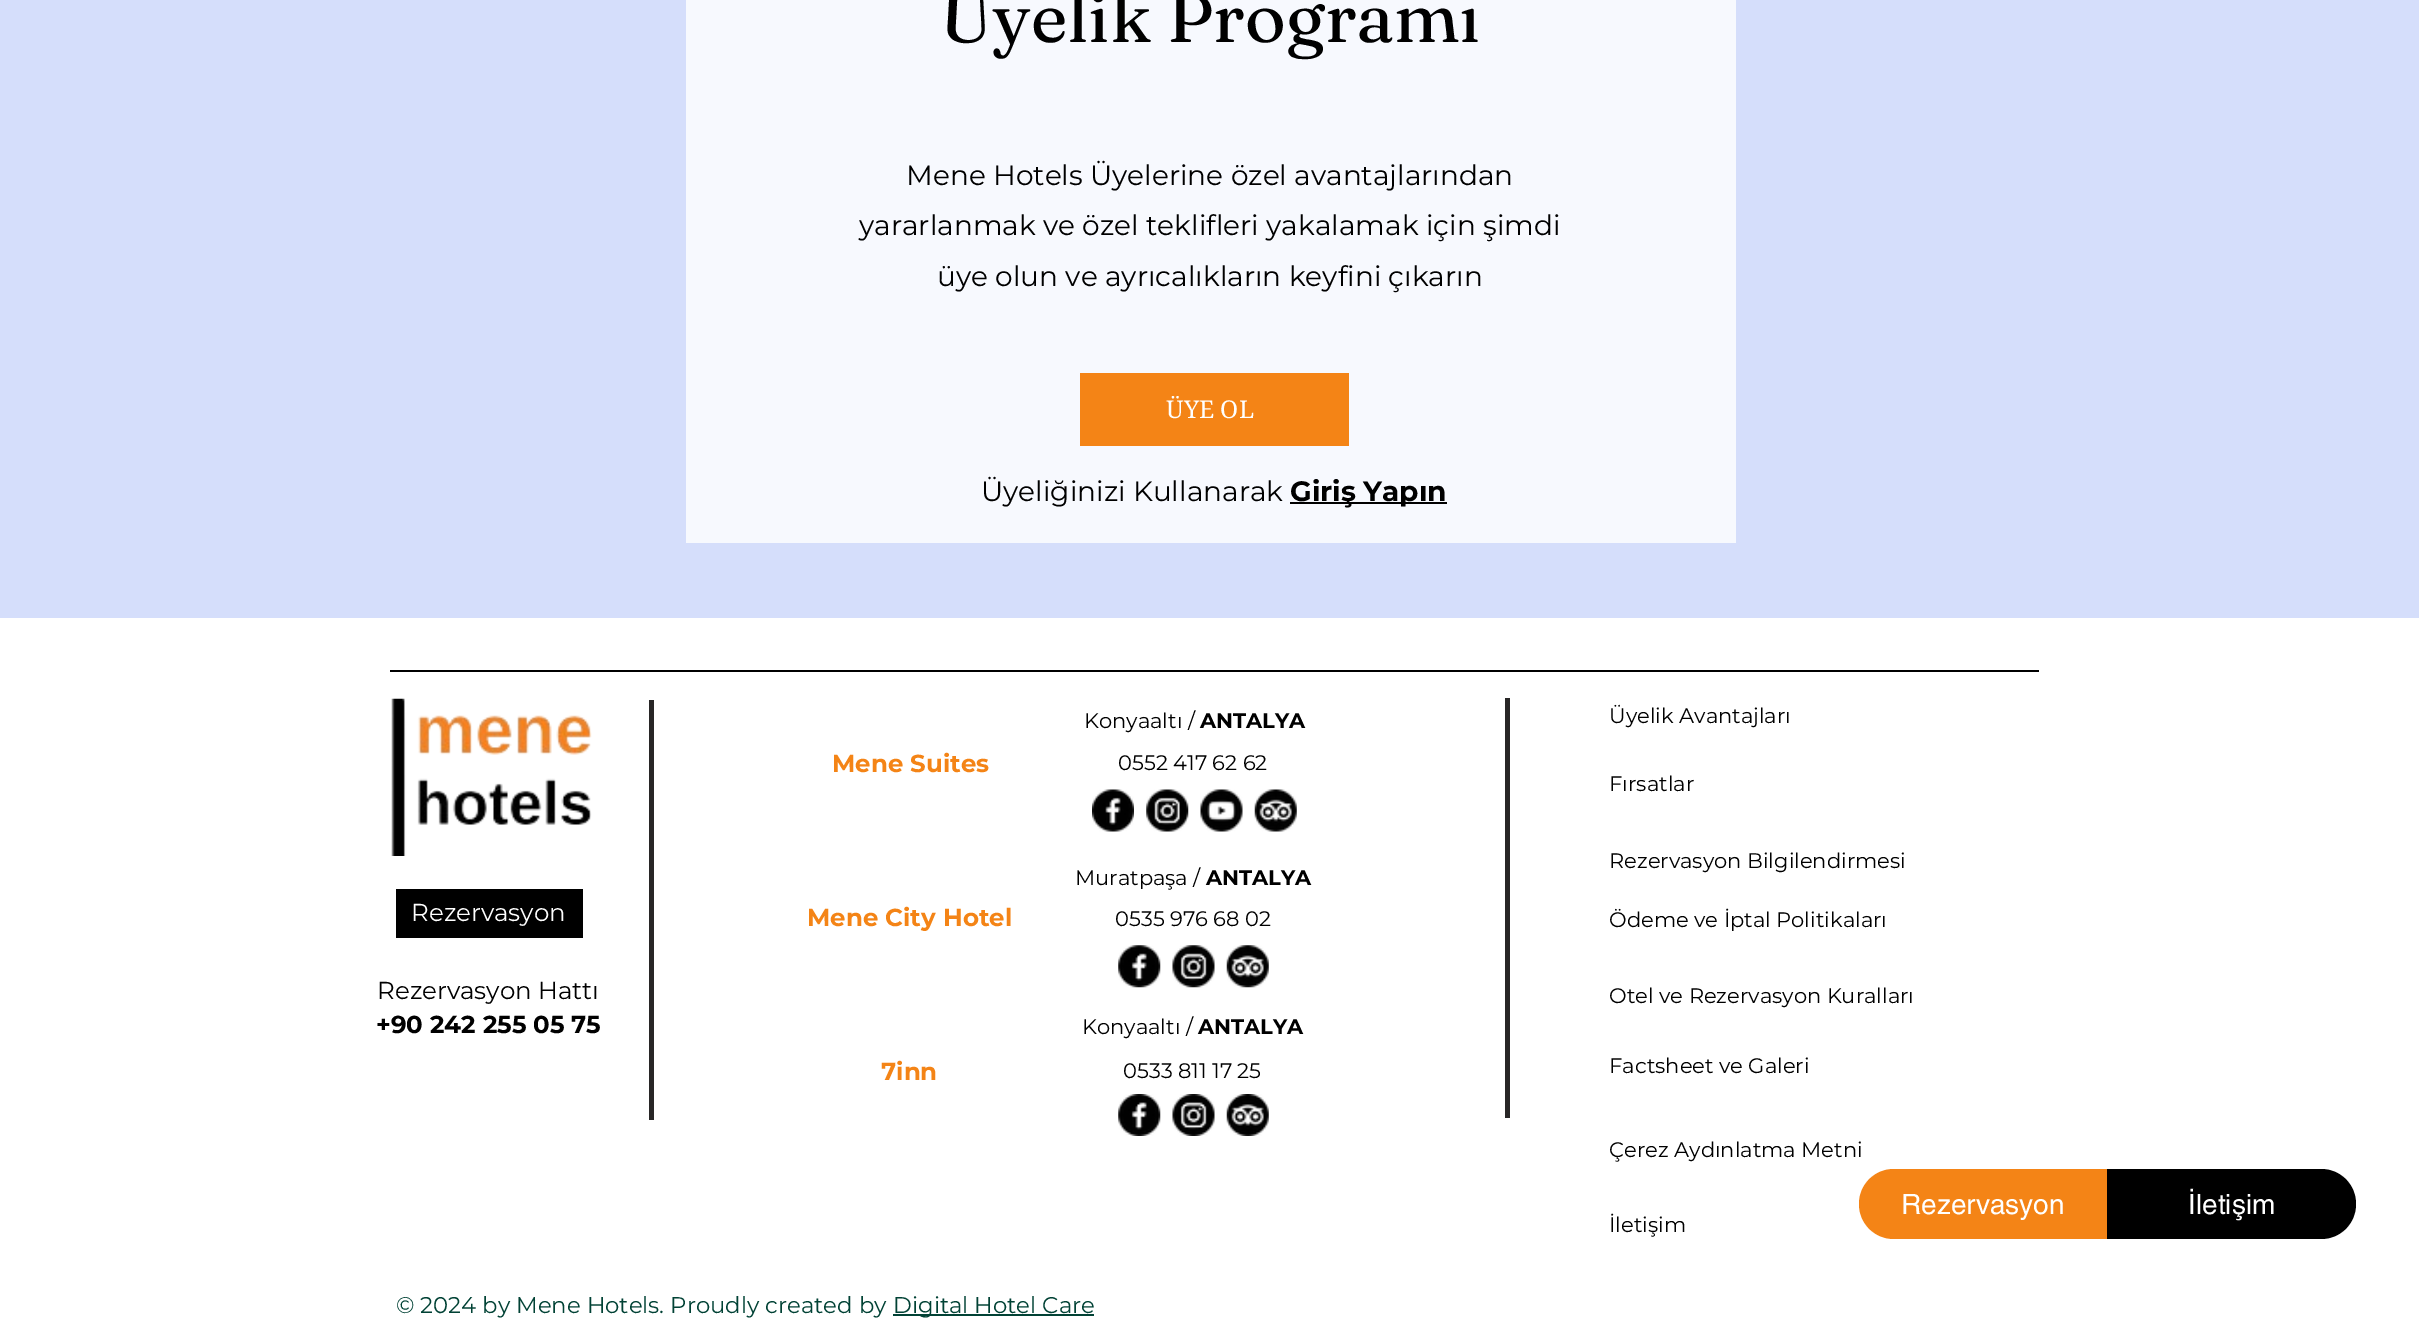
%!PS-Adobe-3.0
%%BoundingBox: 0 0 2419 1335
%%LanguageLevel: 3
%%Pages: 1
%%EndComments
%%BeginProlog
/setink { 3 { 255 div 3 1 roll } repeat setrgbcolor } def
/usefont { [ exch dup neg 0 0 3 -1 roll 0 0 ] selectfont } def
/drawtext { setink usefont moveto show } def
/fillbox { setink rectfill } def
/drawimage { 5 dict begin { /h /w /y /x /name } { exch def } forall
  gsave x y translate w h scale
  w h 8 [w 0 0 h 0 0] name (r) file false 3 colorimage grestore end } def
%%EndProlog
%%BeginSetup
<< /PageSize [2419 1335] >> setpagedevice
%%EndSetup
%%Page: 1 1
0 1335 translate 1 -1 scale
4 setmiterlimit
0 0 2419 1335 255 255 255 fillbox
0 0 2419 618 213 222 251 fillbox
686 0 1050 543 247 249 254 fillbox
(Üyelik Programı) 940 42 /Fraunces-Regular 70 0 0 0 drawtext
(Mene Hotels Üyelerine özel avantajlarından) 906 185 /Montserrat-Regular 28 0 0 0 drawtext
(yararlanmak ve özel teklifleri yakalamak için şimdi) 859 235 /Montserrat-Regular 28 0 0 0 drawtext
(üye olun ve ayrıcalıkların keyfini çıkarın) 937 286 /Montserrat-Regular 28 0 0 0 drawtext
1080 373 269 73 244 132 22 fillbox
gsave
1166 396 89 28 rectclip
(ÜYE OL) 1166 418 /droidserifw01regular-Regular 24.5 255 255 255 drawtext
grestore
(Üyeliğinizi Kullanarak) 981 501 /Montserrat-Regular 28 0 0 0 drawtext
1290 502 157 2 0 0 0 fillbox
(Giriş Yapın) 1290 501 /Montserrat-Bold 28 0 0 0 drawtext
390 670 1649 2 0 0 0 fillbox
(assets/img1.rgb) 391 698 201 158 drawimage
649 700 5 420 40 38 38 fillbox
(Konyaaltı /) 1084 728 /Montserrat-Regular 21 0 0 0 drawtext
(ANTALYA) 1200 728 /Montserrat-Bold 21 0 0 0 drawtext
1505 698 5 420 40 38 38 fillbox
(Üyelik Avantajları) 1609 723 /Montserrat-Regular 21 0 0 0 drawtext
(Mene Suites) 832 772 /Montserrat-Bold 24.5 244 132 22 drawtext
(0552 417 62 62) 1118 770 /Montserrat-Regular 21 0 0 0 drawtext
(Fırsatlar) 1609 791 /Montserrat-Regular 21 0 0 0 drawtext
(assets/img2.rgb) 1092 789 42 43 drawimage
(assets/img3.rgb) 1146 789 43 43 drawimage
(assets/img4.rgb) 1200 789 43 43 drawimage
(assets/img5.rgb) 1254 789 43 43 drawimage
(Rezervasyon Bilgilendirmesi) 1609 868 /Montserrat-Regular 21 0 0 0 drawtext
(Muratpaşa /) 1075 885 /Montserrat-Regular 21 0 0 0 drawtext
(ANTALYA) 1206 885 /Montserrat-Bold 21 0 0 0 drawtext
396 889 187 49 0 0 0 fillbox
(Rezervasyon) 411 921 /Montserrat-Regular 24.5 255 255 255 drawtext
(Mene City Hotel) 807 926 /Montserrat-Bold 24.5 244 132 22 drawtext
(0535 976 68 02) 1115 926 /Montserrat-Regular 21 0 0 0 drawtext
(Ödeme ve İptal Politikaları) 1609 927 /Montserrat-Regular 21 0 0 0 drawtext
(assets/img6.rgb) 1118 945 43 43 drawimage
(assets/img7.rgb) 1172 945 43 43 drawimage
(assets/img8.rgb) 1226 945 43 43 drawimage
(Rezervasyon Hattı) 377 999 /Montserrat-Regular 24.5 0 0 0 drawtext
(+90 242 255 05 75) 376 1033 /Montserrat-Bold 24.5 0 0 0 drawtext
(Otel ve Rezervasyon Kuralları) 1609 1003 /Montserrat-Regular 21 0 0 0 drawtext
(Konyaaltı /) 1082 1034 /Montserrat-Regular 21 0 0 0 drawtext
(ANTALYA) 1198 1034 /Montserrat-Bold 21 0 0 0 drawtext
(7inn) 881 1080 /Montserrat-Bold 24.5 244 132 22 drawtext
(0533 811 17 25) 1123 1078 /Montserrat-Regular 21 0 0 0 drawtext
(Factsheet ve Galeri) 1609 1073 /Montserrat-Regular 21 0 0 0 drawtext
(assets/img9.rgb) 1118 1094 43 42 drawimage
(assets/img10.rgb) 1172 1094 43 42 drawimage
(assets/img11.rgb) 1226 1094 43 42 drawimage
(Çerez Aydınlatma Metni) 1609 1157 /Montserrat-Regular 21 0 0 0 drawtext
(İletişim) 1609 1232 /Montserrat-Regular 21 0 0 0 drawtext
(© 2024 by Mene Hotels. Proudly created by) 396 1313 /Montserrat-Regular 22.75 1 66 53 drawtext
893 1314 201 2 1 66 53 fillbox
(Digital Hotel Care) 893 1313 /Montserrat-Regular 22.75 1 66 53 drawtext
244 132 22 setink
1894 1169 moveto 2107 1169 lineto 2107 1239 lineto 1894 1239 lineto 1874.5 1239 1859 1223.5 1859 1204 curveto 1859 1184.5 1874.5 1169 1894 1169 curveto closepath fill
(Rezervasyon) 1901 1214 /helvetica-Regular 28 255 255 255 drawtext
0 0 0 setink
2107 1169 moveto 2321 1169 lineto 2340.5 1169 2356 1184.5 2356 1204 curveto 2356 1223.5 2340.5 1239 2321 1239 curveto 2107 1239 lineto closepath fill
(İletişim) 2188 1214 /helvetica-Regular 28 255 255 255 drawtext
showpage
%%EOF
